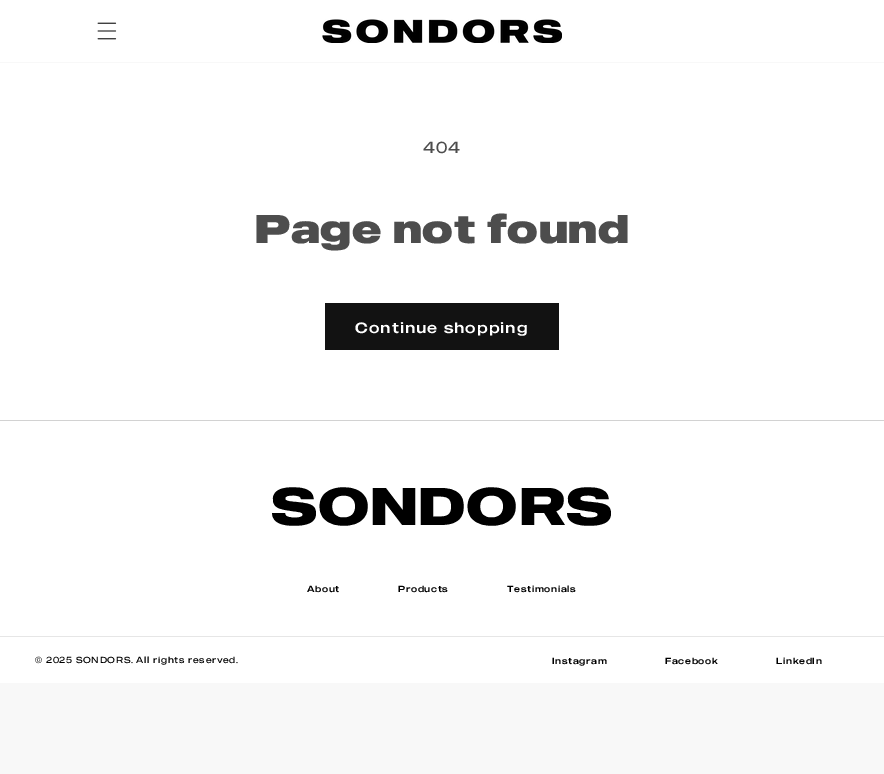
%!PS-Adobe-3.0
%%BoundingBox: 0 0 884 774
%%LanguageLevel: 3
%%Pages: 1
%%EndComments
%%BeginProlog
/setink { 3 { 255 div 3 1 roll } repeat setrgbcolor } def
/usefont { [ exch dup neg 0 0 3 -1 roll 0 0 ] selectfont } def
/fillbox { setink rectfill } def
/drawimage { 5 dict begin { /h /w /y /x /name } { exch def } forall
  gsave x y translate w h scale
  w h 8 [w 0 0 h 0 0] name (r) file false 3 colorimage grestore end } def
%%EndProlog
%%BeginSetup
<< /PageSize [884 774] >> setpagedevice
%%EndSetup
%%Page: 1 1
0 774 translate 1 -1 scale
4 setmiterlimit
0 0 884 774 248 248 248 fillbox
0 0 884 683 255 255 255 fillbox
0 62 884 1 248 248 248 fillbox
(assets/img1.rgb) 97 22 20 18 drawimage
(assets/img2.rgb) 322 19 240 24 drawimage
/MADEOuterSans-Light 16 usefont
77 77 77 setink
423 153 moveto 0.6 0 (404) ashow
/MADEOuterSans-Black 40 usefont
255 243 moveto 0.6 0 (Page not found) ashow
325 303 234 47 18 18 18 fillbox
/MADEOuterSans-Regular 15 usefont
255 255 255 setink
355 333 moveto 1 0 (Continue shopping) ashow
0 420 884 1 210 210 210 fillbox
/MADEOuterSans-Bold 53 usefont
0 0 0 setink
271 525 moveto 0.6 0 (SONDORS) ashow
/MADEOuterSans-Regular 8.8 usefont
307 592 moveto 0.6 0 (About) ashow
398 592 moveto 0.6 0 (Products) ashow
507 592 moveto 0.6 0 (Testimonials) ashow
0 636 884 1 230 230 230 fillbox
/MADEOuterSans-Light 8.8 usefont
0 0 0 setink
35 663 moveto 0.6 0 (© 2025 SONDORS. All rights reserved.) ashow
/MADEOuterSans-Regular 8.8 usefont
552 664 moveto 0.6 0 (Instagram) ashow
665 664 moveto 0.6 0 (Facebook) ashow
776 664 moveto 0.6 0 (LinkedIn) ashow
showpage
%%EOF
